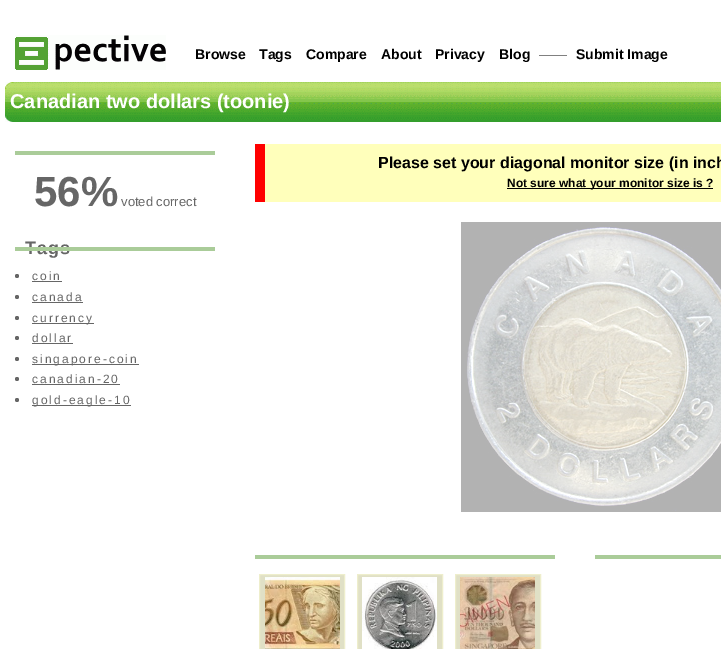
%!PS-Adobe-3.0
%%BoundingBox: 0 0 721 649
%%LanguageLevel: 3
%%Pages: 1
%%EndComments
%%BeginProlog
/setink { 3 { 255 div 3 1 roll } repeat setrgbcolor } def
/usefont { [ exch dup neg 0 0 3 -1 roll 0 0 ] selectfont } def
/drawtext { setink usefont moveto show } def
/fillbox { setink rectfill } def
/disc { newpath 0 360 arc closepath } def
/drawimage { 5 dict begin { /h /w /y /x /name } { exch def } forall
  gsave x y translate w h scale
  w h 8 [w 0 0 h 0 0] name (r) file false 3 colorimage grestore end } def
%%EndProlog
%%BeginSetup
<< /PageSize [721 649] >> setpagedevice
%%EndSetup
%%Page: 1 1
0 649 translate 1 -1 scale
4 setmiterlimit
0 0 721 649 255 255 255 fillbox
(assets/img1.rgb) 15 35 151 35 drawimage
(Browse) 195 59 /LiberationSans-Bold 14 0 0 0 drawtext
(Tags) 259 59 /LiberationSans-Bold 14 0 0 0 drawtext
(Compare) 306 59 /LiberationSans-Bold 14 0 0 0 drawtext
(About) 381 59 /LiberationSans-Bold 14 0 0 0 drawtext
(Privacy) 435 59 /LiberationSans-Bold 14 0 0 0 drawtext
(Blog) 499 59 /LiberationSans-Bold 14 0 0 0 drawtext
(——) 539 59 /LiberationSans-Regular 14 128 128 128 drawtext
(Submit Image) 576 59 /LiberationSans-Bold 14 0 0 0 drawtext
(assets/img2.rgb) 5 82 716 40 drawimage
(Canadian two dollars \(toonie\)) 10 108 /LiberationSans-Bold 20 255 255 255 drawtext
15 151 200 4 170 204 153 fillbox
(56%) 34 206 /LiberationSans-Bold 42 102 102 102 drawtext
(voted correct) 121 206 /LiberationSans-Regular 13 102 102 102 drawtext
/LiberationSans-Bold 18 usefont
25 254 moveto 1 0 (Tags) ashow
15 247 200 4 170 204 153 fillbox
102 102 102 setink
17 276 2 disc fill
/LiberationSans-Regular 12 usefont
32 280 moveto 2 0 (coin) ashow
32 281 30 1 102 102 102 fillbox
17 297 2 disc fill
32 301 moveto 2 0 (canada) ashow
32 302 51 1 102 102 102 fillbox
17 318 2 disc fill
32 323 62 1 102 102 102 fillbox
32 322 moveto 2 0 (currency) ashow
17 338 2 disc fill
32 342 moveto 2 0 (dollar) ashow
32 343 41 1 102 102 102 fillbox
17 359 2 disc fill
32 364 107 1 102 102 102 fillbox
32 363 moveto 2 0 (singapore-coin) ashow
17 379 2 disc fill
32 383 moveto 2 0 (canadian-20) ashow
32 384 88 1 102 102 102 fillbox
17 400 2 disc fill
32 405 99 1 102 102 102 fillbox
32 404 moveto 2 0 (gold-eagle-10) ashow
255 144 10 58 255 0 0 fillbox
265 144 456 58 255 255 187 fillbox
(Please set your diagonal monitor size \(in inch) 378 168 /LiberationSans-Bold 16 0 0 0 drawtext
507 188 206 1 0 0 0 fillbox
(Not sure what your monitor size is ?) 507 187 /LiberationSans-Bold 12 0 0 0 drawtext
(assets/img3.rgb) 461 222 260 290 drawimage
255 555 300 4 170 204 153 fillbox
224 224 198 setink
259.5 574.5 moveto 344.5 574.5 lineto 344.5 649.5 lineto 259.5 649.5 lineto closepath gsave fill grestore
238 238 204 setink
stroke
(assets/img4.rgb) 265 577 75 72 drawimage
224 224 198 setink
357.5 574.5 moveto 442.5 574.5 lineto 442.5 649.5 lineto 357.5 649.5 lineto closepath gsave fill grestore
238 238 204 setink
stroke
(assets/img5.rgb) 362 577 75 72 drawimage
224 224 198 setink
455.5 574.5 moveto 540.5 574.5 lineto 540.5 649.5 lineto 455.5 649.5 lineto closepath gsave fill grestore
238 238 204 setink
stroke
(assets/img6.rgb) 460 577 75 72 drawimage
595 555 126 4 170 204 153 fillbox
showpage
%%EOF
